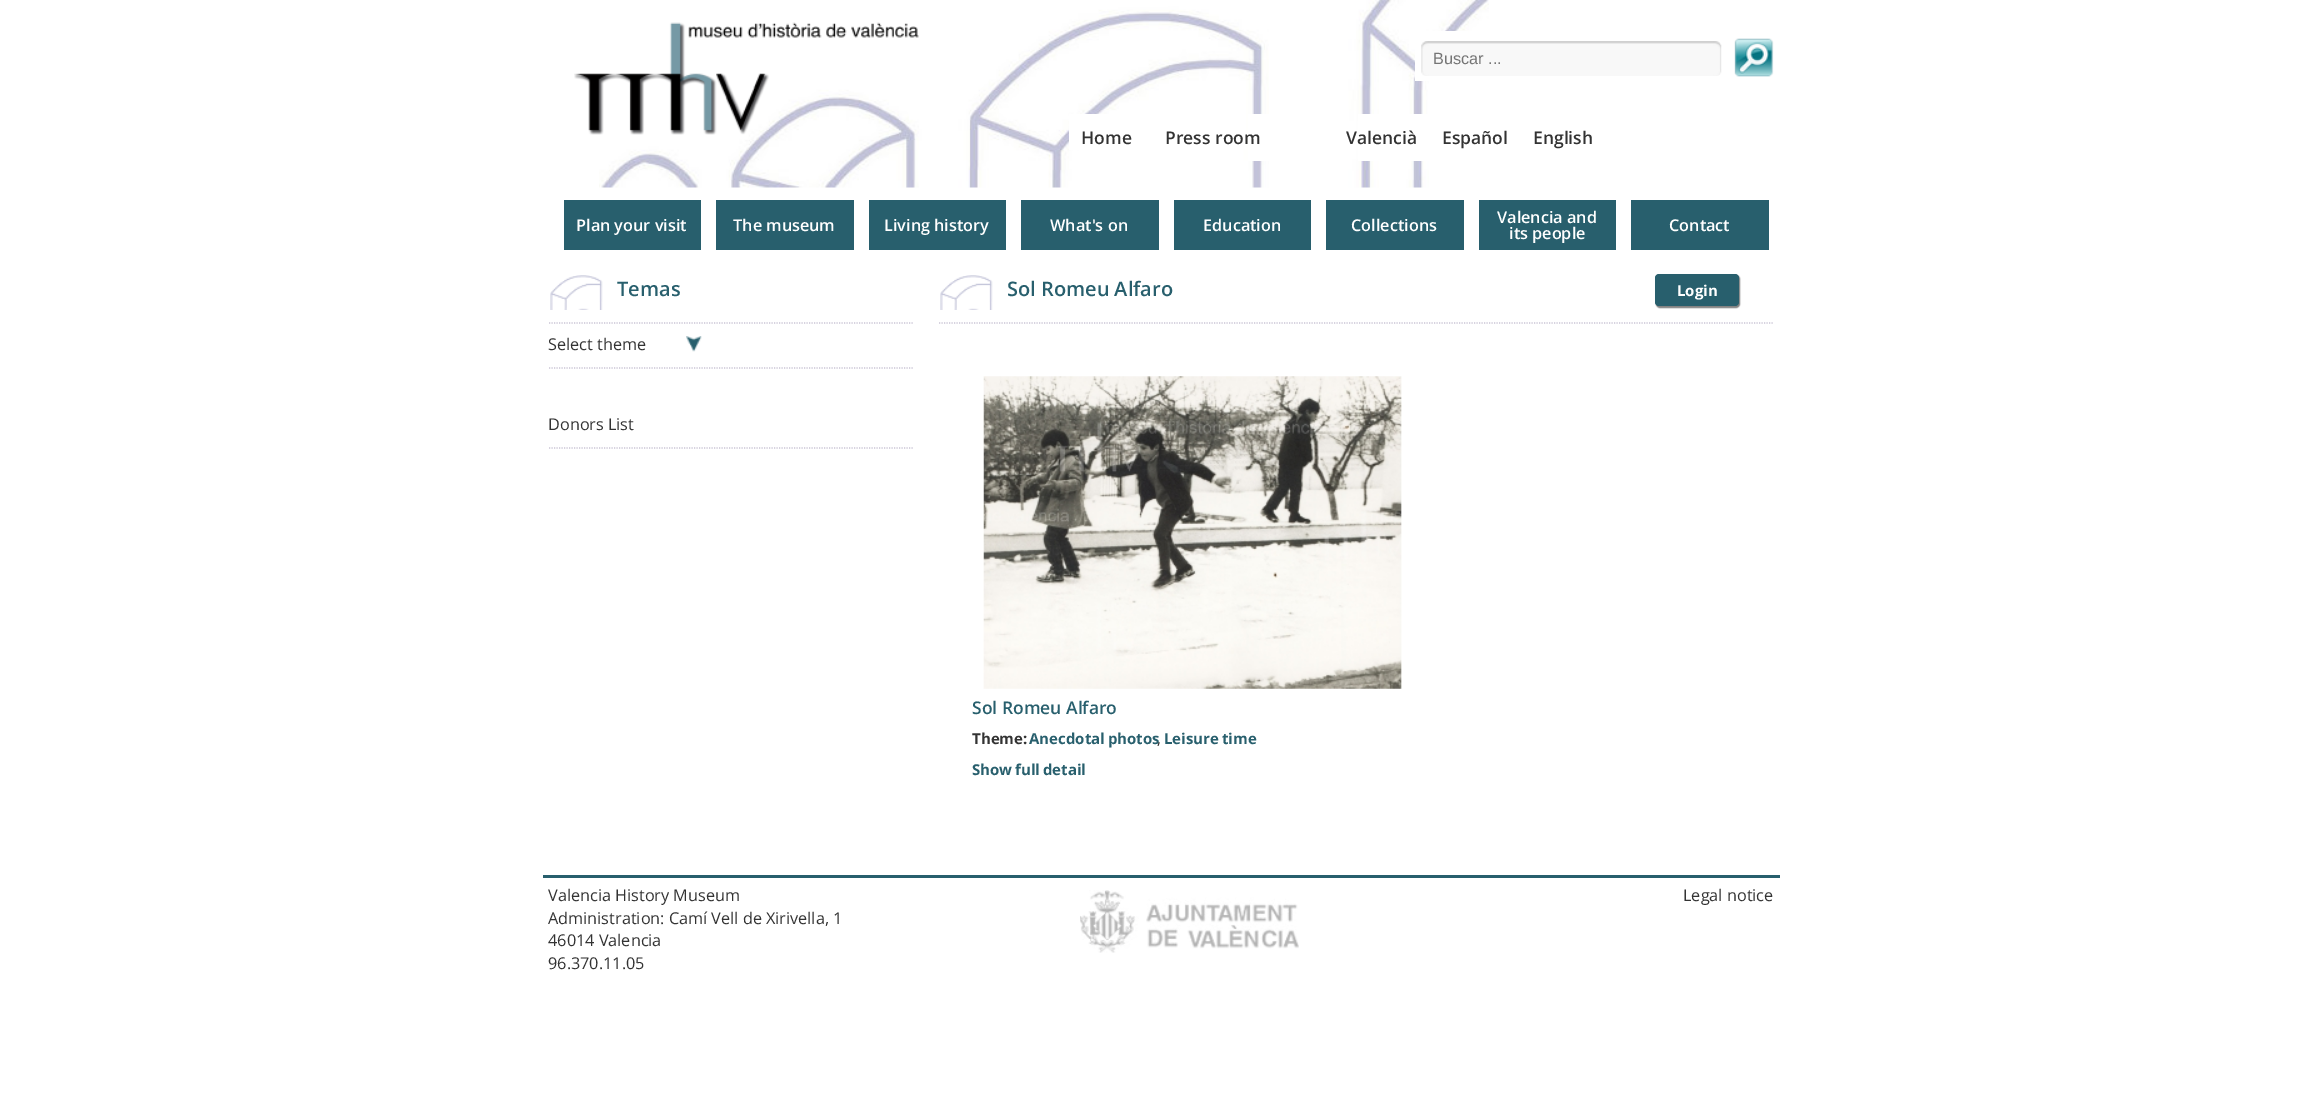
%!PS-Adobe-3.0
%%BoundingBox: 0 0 2321 1093
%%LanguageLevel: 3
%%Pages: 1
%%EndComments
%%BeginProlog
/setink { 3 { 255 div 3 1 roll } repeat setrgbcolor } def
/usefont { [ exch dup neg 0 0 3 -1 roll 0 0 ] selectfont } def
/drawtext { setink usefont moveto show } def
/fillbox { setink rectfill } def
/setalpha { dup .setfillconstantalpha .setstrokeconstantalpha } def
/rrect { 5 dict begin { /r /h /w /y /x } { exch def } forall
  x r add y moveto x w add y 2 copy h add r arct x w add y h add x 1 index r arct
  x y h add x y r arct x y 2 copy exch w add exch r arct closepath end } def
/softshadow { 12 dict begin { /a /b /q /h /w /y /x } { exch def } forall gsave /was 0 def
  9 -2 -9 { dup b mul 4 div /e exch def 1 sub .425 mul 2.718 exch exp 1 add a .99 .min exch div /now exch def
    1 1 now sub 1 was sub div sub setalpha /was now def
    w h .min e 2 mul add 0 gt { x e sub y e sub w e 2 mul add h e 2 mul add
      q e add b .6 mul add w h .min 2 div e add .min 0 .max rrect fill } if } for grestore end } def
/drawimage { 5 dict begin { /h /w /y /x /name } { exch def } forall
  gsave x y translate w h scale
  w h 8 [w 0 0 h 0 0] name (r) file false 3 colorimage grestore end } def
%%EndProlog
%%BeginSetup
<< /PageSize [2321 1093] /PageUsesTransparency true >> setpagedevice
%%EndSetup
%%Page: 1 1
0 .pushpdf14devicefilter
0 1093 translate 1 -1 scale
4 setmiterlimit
0 0 2321 1093 255 255 255 fillbox
(assets/img2.rgb) 599 0 890 188 drawimage
(assets/img1.rgb) 574 22 345 113 drawimage
1415 31 53 50 255 255 255 fillbox
(assets/img3.rgb) 1421 41 301 35 drawimage
(Buscar ...) 1433 64 /LiberationSans-Regular 16.25 117 117 117 drawtext
(assets/img4.rgb) 1734 38 40 39 drawimage
1069 114 40 36 255 255 255 fillbox
(Home) 1081 144 /OpenSans-SemiBold 17.5 51 51 51 drawtext
1248 114 21 47 255 255 255 fillbox
(Press room) 1165 144 /OpenSans-SemiBold 17.5 51 51 51 drawtext
1358 114 71 47 255 255 255 fillbox
(Valencià) 1346 144 /OpenSans-SemiBold 17.5 51 51 51 drawtext
(Español) 1442 144 /OpenSans-SemiBold 17.5 51 51 51 drawtext
(English) 1533 144 /OpenSans-SemiBold 17.5 51 51 51 drawtext
564 200 137 50 40 95 109 fillbox
(Plan your visit) 576 231 /OpenSans-SemiBold 16.25 255 255 255 drawtext
716 200 138 50 40 95 109 fillbox
(The museum) 733 231 /OpenSans-SemiBold 16.25 255 255 255 drawtext
869 200 137 50 40 95 109 fillbox
(Living history) 884 231 /OpenSans-SemiBold 16.25 255 255 255 drawtext
1021 200 138 50 40 95 109 fillbox
(What's on) 1050 231 /OpenSans-SemiBold 16.25 255 255 255 drawtext
1174 200 137 50 40 95 109 fillbox
(Education) 1203 231 /OpenSans-SemiBold 16.25 255 255 255 drawtext
1326 200 138 50 40 95 109 fillbox
(Collections) 1351 231 /OpenSans-SemiBold 16.25 255 255 255 drawtext
1479 200 137 50 40 95 109 fillbox
(Valencia and) 1497 223 /OpenSans-SemiBold 16.25 255 255 255 drawtext
(its people) 1509 239 /OpenSans-SemiBold 16.25 255 255 255 drawtext
1631 200 138 50 40 95 109 fillbox
(Contact) 1669 231 /OpenSans-SemiBold 16.25 255 255 255 drawtext
200 195 212 setink
1.2 setlinewidth
[1.25 1.25] 0 setdash
549 368 moveto 914 368 lineto stroke
(assets/img5.rgb) 550 275 53 35 drawimage
549 323 moveto 914 323 lineto stroke
(Temas) 617 296 /OpenSans-SemiBold 20 40 95 109 drawtext
(assets/img6.rgb) 686 336 16 16 drawimage
(Select theme) 548 350 /OpenSans-Regular 16.25 51 51 51 drawtext
200 195 212 setink
549 448 moveto 914 448 lineto stroke
(Donors List) 548 430 /OpenSans-Regular 16.25 51 51 51 drawtext
(assets/img5.rgb) 940 275 53 35 drawimage
200 195 212 setink
939 323 moveto 1774 323 lineto stroke
(Sol Romeu Alfaro) 1007 296 /OpenSans-SemiBold 20 40 95 109 drawtext
0 0 0 setink
1656 275 84 33 4 0.5 0.5 softshadow
40 95 109 setink
1655 274 84 32 4 rrect fill
(Login) 1677 296 /OpenSans-Bold 15 255 255 255 drawtext
(assets/img7.rgb) 983 376 419 313 drawimage
(Sol Romeu Alfaro) 972 714 /OpenSans-SemiBold 17.5 40 95 109 drawtext
(Theme:) 972 744 /OpenSans-Bold 15 51 51 51 drawtext
40 95 109 setink
1029 744 moveto -1 0 32 (Anecdotal photos) widthshow
1164 744 moveto -1 0 32 (Leisure time) widthshow
(,) 1157 744 /OpenSans-Regular 15 51 51 51 drawtext
/OpenSans-Bold 15 usefont
40 95 109 setink
972 775 moveto -1 0 32 (Show full detail) widthshow
543 875 1237 3 40 95 109 fillbox
(Valencia History Museum) 548 901 /OpenSans-Regular 16.25 51 51 51 drawtext
(Administration: Camí Vell de Xirivella, 1) 548 924 /OpenSans-Regular 16.25 51 51 51 drawtext
(46014 Valencia) 548 946 /OpenSans-Regular 16.25 51 51 51 drawtext
(96.370.11.05) 548 969 /OpenSans-Regular 16.25 51 51 51 drawtext
(assets/img8.rgb) 1080 890 219 63 drawimage
(Legal notice) 1683 901 /OpenSans-Regular 16.25 51 51 51 drawtext
.poppdf14devicefilter showpage
%%EOF
